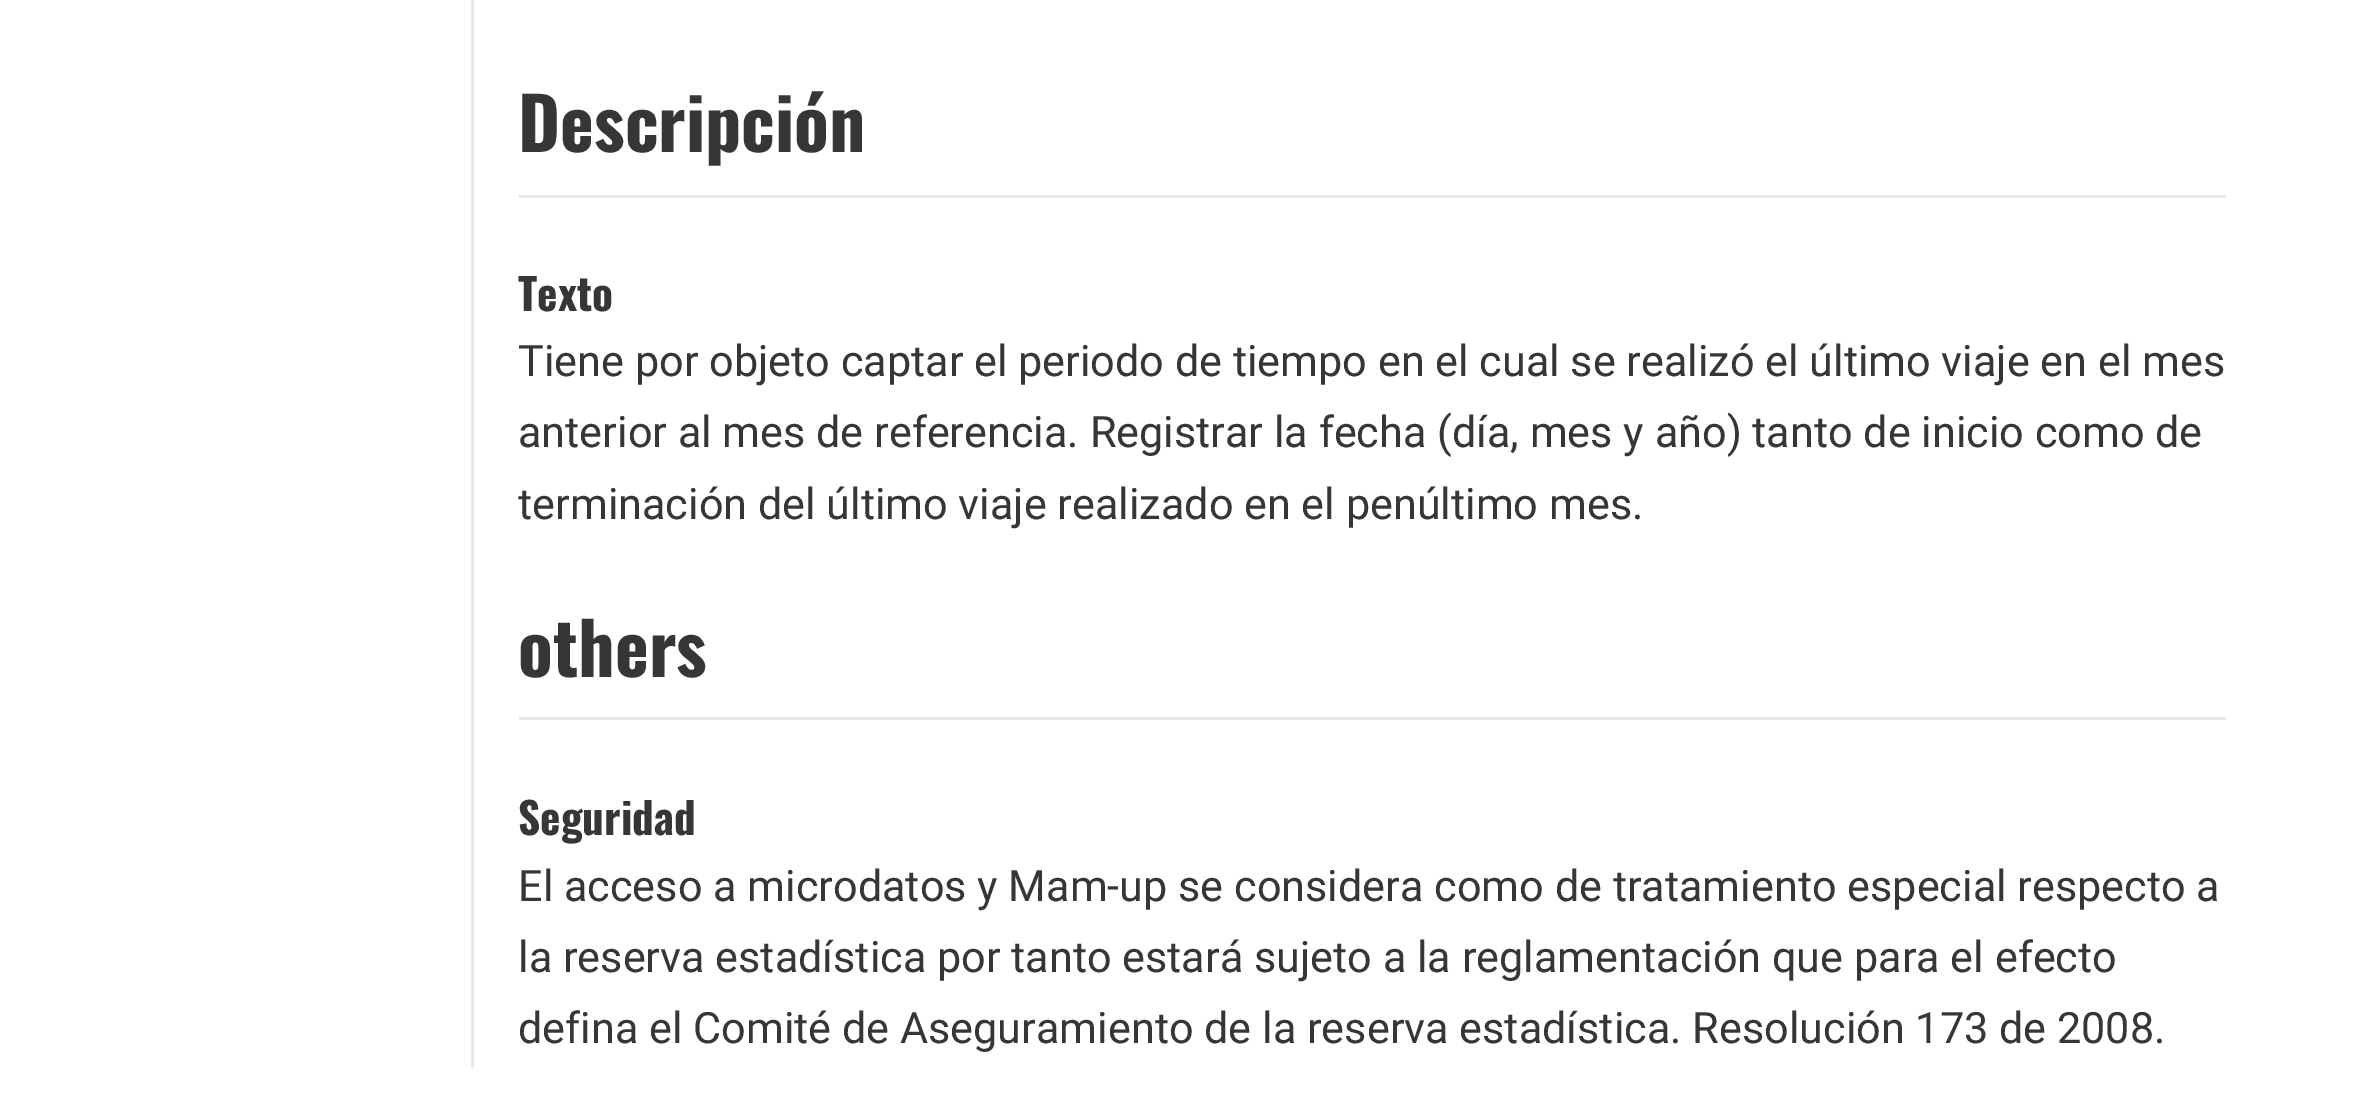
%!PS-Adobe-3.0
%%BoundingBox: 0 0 2378 1101
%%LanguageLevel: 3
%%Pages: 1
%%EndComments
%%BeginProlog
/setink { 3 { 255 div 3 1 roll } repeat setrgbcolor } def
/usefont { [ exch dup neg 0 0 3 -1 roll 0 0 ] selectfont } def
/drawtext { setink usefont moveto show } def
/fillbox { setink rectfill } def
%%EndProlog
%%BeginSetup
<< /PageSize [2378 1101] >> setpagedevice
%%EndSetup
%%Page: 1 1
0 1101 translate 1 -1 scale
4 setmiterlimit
0 0 2378 1101 255 255 255 fillbox
471 0 3 1068 232 232 232 fillbox
519 195 1707 3 232 232 232 fillbox
(Descripción) 518 152 /Oswald-Bold 72 54 54 54 drawtext
(Texto) 518 311 /Oswald-Bold 43.2 54 54 54 drawtext
(Tiene por objeto captar el periodo de tiempo en el cual se realizó el último viaje en el mes) 518 376 /Roboto-Regular 43.2 54 54 54 drawtext
(anterior al mes de referencia. Registrar la fecha \(día, mes y año\) tanto de inicio como de) 518 447 /Roboto-Regular 43.2 54 54 54 drawtext
(terminación del último viaje realizado en el penúltimo mes.) 518 519 /Roboto-Regular 43.2 54 54 54 drawtext
519 717 1707 3 232 232 232 fillbox
(others) 518 677 /Oswald-Bold 72 54 54 54 drawtext
(Seguridad) 518 835 /Oswald-Bold 43.2 54 54 54 drawtext
(El acceso a microdatos y Mam-up se considera como de tratamiento especial respecto a) 518 901 /Roboto-Regular 43.2 54 54 54 drawtext
(la reserva estadística por tanto estará sujeto a la reglamentación que para el efecto) 518 972 /Roboto-Regular 43.2 54 54 54 drawtext
(defina el Comité de Aseguramiento de la reserva estadística. Resolución 173 de 2008.) 518 1043 /Roboto-Regular 43.2 54 54 54 drawtext
showpage
%%EOF
